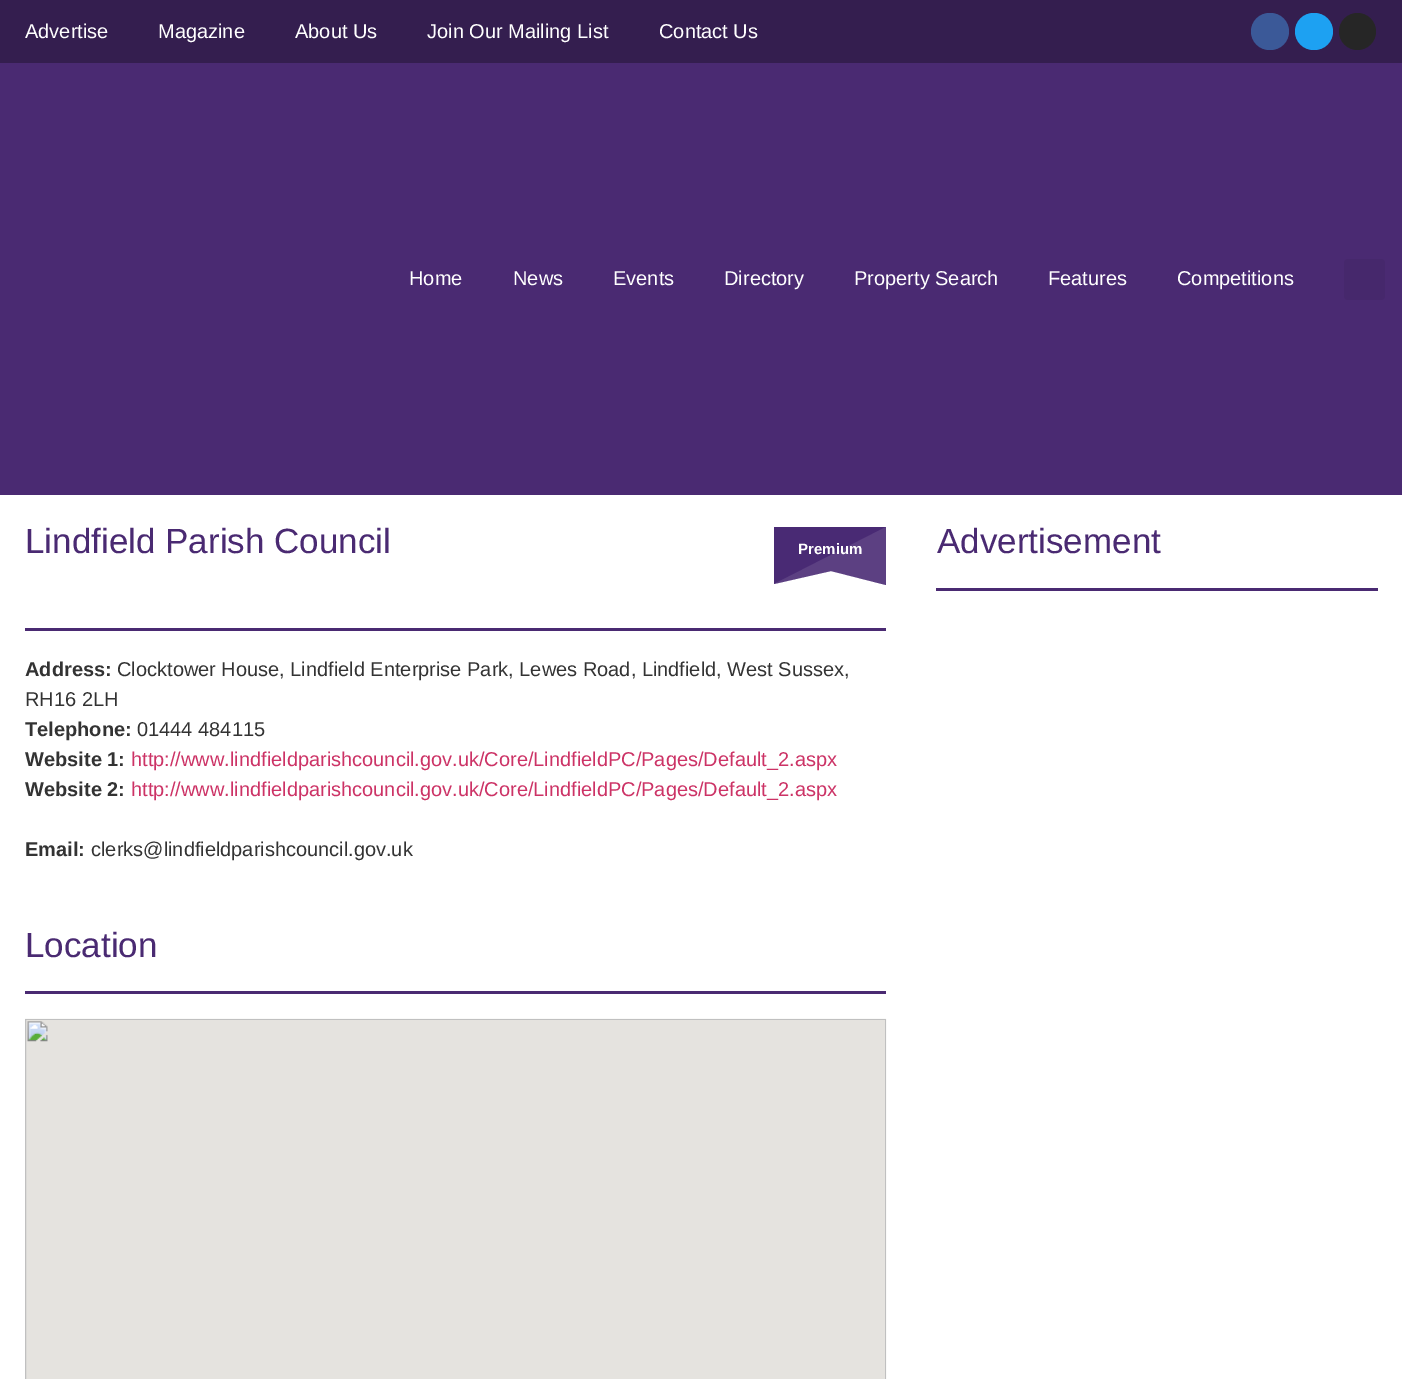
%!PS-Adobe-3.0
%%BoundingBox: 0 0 1402 1379
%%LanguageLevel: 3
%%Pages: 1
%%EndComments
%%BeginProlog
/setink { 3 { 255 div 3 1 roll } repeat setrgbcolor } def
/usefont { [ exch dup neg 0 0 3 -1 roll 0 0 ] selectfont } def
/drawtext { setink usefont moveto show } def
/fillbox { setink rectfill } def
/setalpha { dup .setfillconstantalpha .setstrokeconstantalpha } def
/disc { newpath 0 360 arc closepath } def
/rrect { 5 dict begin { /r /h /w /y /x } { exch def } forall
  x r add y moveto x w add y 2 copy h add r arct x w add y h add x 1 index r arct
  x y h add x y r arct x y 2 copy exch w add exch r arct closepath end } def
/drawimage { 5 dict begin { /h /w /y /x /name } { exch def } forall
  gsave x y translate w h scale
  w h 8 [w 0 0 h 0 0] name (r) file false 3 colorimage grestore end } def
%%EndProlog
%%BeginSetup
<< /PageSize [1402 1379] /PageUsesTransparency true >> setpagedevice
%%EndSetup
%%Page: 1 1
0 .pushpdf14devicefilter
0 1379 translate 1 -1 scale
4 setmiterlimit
0 0 1402 1379 255 255 255 fillbox
0 0 1402 63 52 30 79 fillbox
(Advertise) 25 38 /LiberationSans-Regular 20 255 255 255 drawtext
(Magazine) 158 38 /LiberationSans-Regular 20 255 255 255 drawtext
(About Us) 295 38 /LiberationSans-Regular 20 255 255 255 drawtext
(Join Our Mailing List) 427 38 /LiberationSans-Regular 20 255 255 255 drawtext
(Contact Us) 659 38 /LiberationSans-Regular 20 255 255 255 drawtext
59 89 152 setink
1251 13 38 37 18.5 rrect fill
29 161 242 setink
1295 13 38 37 18.5 rrect fill
38 38 38 setink
1357.5 31.5 18.5 disc fill
0 63 1402 432 74 42 114 fillbox
(Home) 409 285 /LiberationSans-Regular 20 255 255 255 drawtext
(News) 513 285 /LiberationSans-Regular 20 255 255 255 drawtext
(Events) 613 285 /LiberationSans-Regular 20 255 255 255 drawtext
(Directory) 724 285 /LiberationSans-Regular 20 255 255 255 drawtext
(Property Search) 854 285 /LiberationSans-Regular 20 255 255 255 drawtext
(Features) 1048 285 /LiberationSans-Regular 20 255 255 255 drawtext
(Competitions) 1177 285 /LiberationSans-Regular 20 255 255 255 drawtext
70 40 108 setink
1344 259 41 41 4 rrect fill
25 628 861 3 74 42 114 fillbox
(Lindfield Parish Council) 25 553 /LiberationSans-Regular 35 74 42 114 drawtext
73 42 116 setink
774 584 moveto 774 527 lineto 886 527 lineto 886 585 lineto 831 571 lineto closepath fill
0.1 setalpha
255 255 255 setink
774 584 moveto 886 527 lineto 886 585 lineto 831 571 lineto closepath fill
1 setalpha
(Premium) 798 554 /LiberationSans-Bold 15 255 255 255 drawtext
(Address:) 25 676 /LiberationSans-Bold 20 51 51 51 drawtext
(Clocktower House, Lindfield Enterprise Park, Lewes Road, Lindfield, West Sussex,) 117 676 /LiberationSans-Regular 20 51 51 51 drawtext
(RH16 2LH) 25 706 /LiberationSans-Regular 20 51 51 51 drawtext
(Telephone:) 25 736 /LiberationSans-Bold 20 51 51 51 drawtext
(01444 484115) 137 736 /LiberationSans-Regular 20 51 51 51 drawtext
(Website 1:) 25 766 /LiberationSans-Bold 20 51 51 51 drawtext
(http://www.lindfieldparishcouncil.gov.uk/Core/LindfieldPC/Pages/Default_2.aspx) 131 766 /LiberationSans-Regular 20 204 51 102 drawtext
(Website 2:) 25 796 /LiberationSans-Bold 20 51 51 51 drawtext
(http://www.lindfieldparishcouncil.gov.uk/Core/LindfieldPC/Pages/Default_2.aspx) 131 796 /LiberationSans-Regular 20 204 51 102 drawtext
(Email:) 25 856 /LiberationSans-Bold 20 51 51 51 drawtext
(clerks@lindfieldparishcouncil.gov.uk) 91 856 /LiberationSans-Regular 20 51 51 51 drawtext
25 991 861 3 74 42 114 fillbox
(Location) 25 957 /LiberationSans-Regular 35 74 42 114 drawtext
(assets/img1.rgb) 25 1018 862 361 drawimage
936 588 442 3 74 42 114 fillbox
(Advertisement) 937 553 /LiberationSans-Regular 35 74 42 114 drawtext
.poppdf14devicefilter showpage
%%EOF
